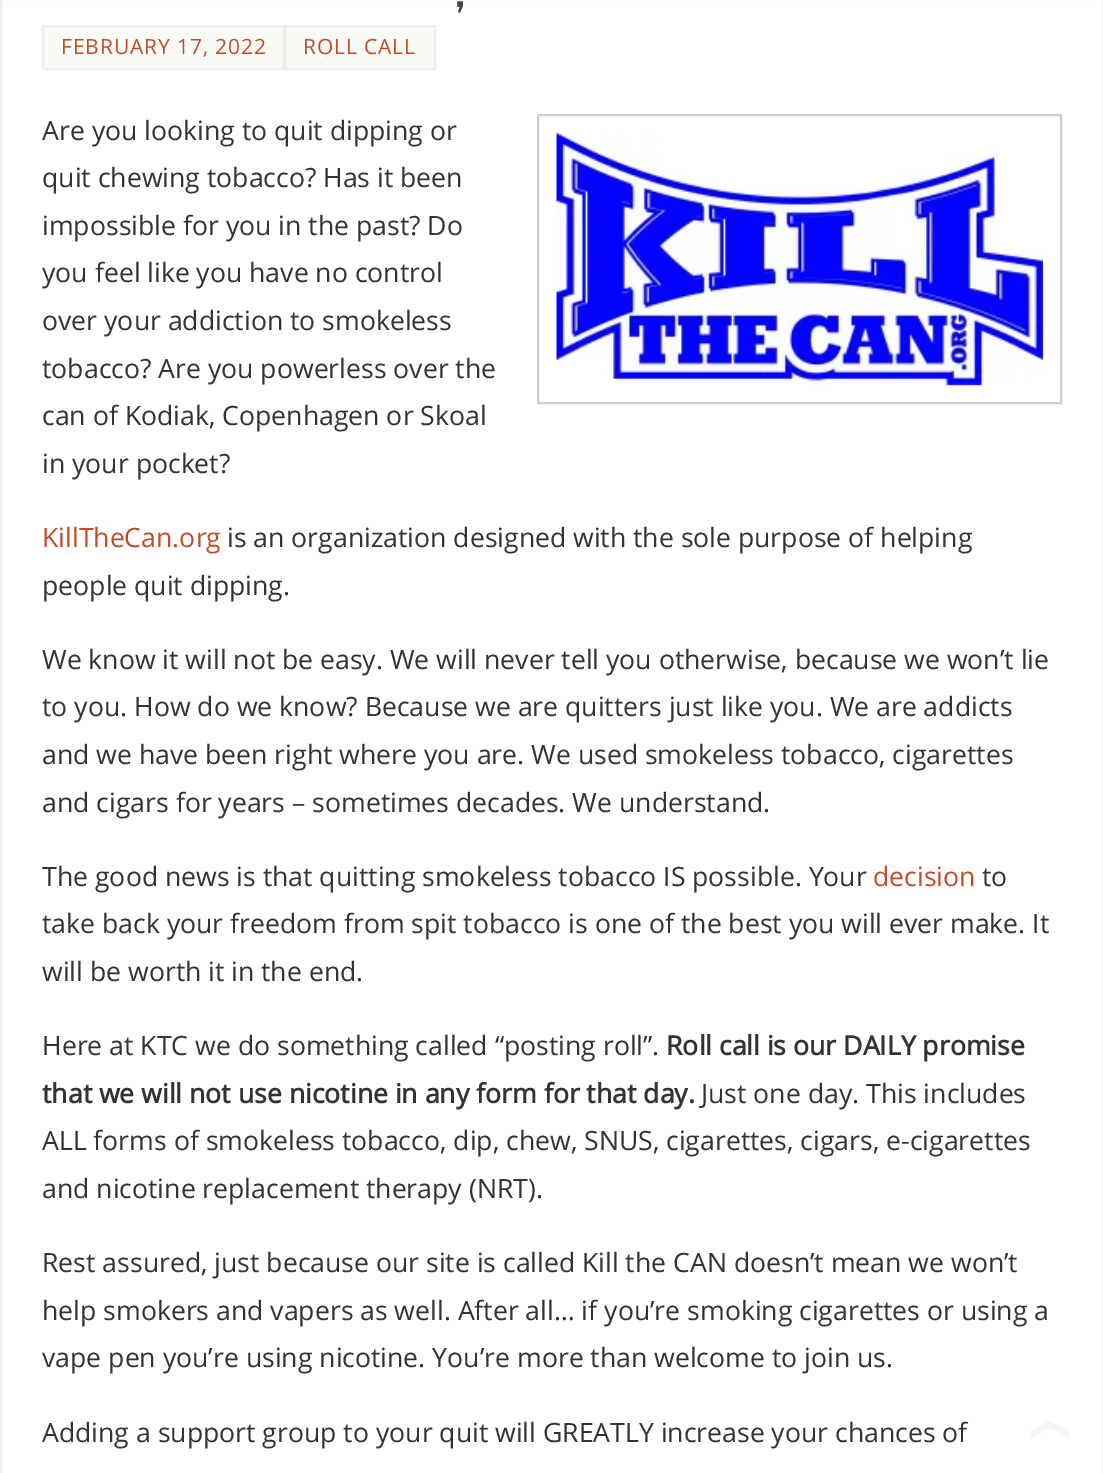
%!PS-Adobe-3.0
%%BoundingBox: 0 0 1103 1473
%%LanguageLevel: 3
%%Pages: 1
%%EndComments
%%BeginProlog
/setink { 3 { 255 div 3 1 roll } repeat setrgbcolor } def
/usefont { [ exch dup neg 0 0 3 -1 roll 0 0 ] selectfont } def
/drawtext { setink usefont moveto show } def
/fillbox { setink rectfill } def
/drawimage { 5 dict begin { /h /w /y /x /name } { exch def } forall
  gsave x y translate w h scale
  w h 8 [w 0 0 h 0 0] name (r) file false 3 colorimage grestore end } def
%%EndProlog
%%BeginSetup
<< /PageSize [1103 1473] >> setpagedevice
%%EndSetup
%%Page: 1 1
0 1473 translate 1 -1 scale
4 setmiterlimit
0 0 1103 1473 255 255 255 fillbox
238 238 238 setink
2 setlinewidth
1 -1 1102 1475 rectstroke
(,) 455 7 /BebasNeue-Regular 54 68 68 68 drawtext
250 250 247 setink
43 26 moveto 284 26 lineto 284 69 lineto 43 69 lineto closepath gsave fill grestore
238 238 238 setink
stroke
/OpenSans-Regular 21 usefont
191 77 40 setink
61 54 moveto 0.9 0 (FEBRUARY 17, 2022) ashow
250 250 247 setink
285 26 moveto 435 26 lineto 435 69 lineto 285 69 lineto closepath gsave fill grestore
238 238 238 setink
stroke
191 77 40 setink
303 54 moveto 0.9 0 (ROLL CALL) ashow
(Are you looking to quit dipping or) 42 140 /OpenSans-Regular 26.6 51 51 51 drawtext
205 205 205 setink
538 115 523 288 rectstroke
(assets/img1.rgb) 556 133 487 253 drawimage
(quit chewing tobacco? Has it been) 42 187 /OpenSans-Regular 26.6 51 51 51 drawtext
(impossible for you in the past? Do) 42 235 /OpenSans-Regular 26.6 51 51 51 drawtext
(you feel like you have no control) 42 282 /OpenSans-Regular 26.6 51 51 51 drawtext
(over your addiction to smokeless) 42 330 /OpenSans-Regular 26.6 51 51 51 drawtext
(tobacco? Are you powerless over the) 42 378 /OpenSans-Regular 26.6 51 51 51 drawtext
(can of Kodiak, Copenhagen or Skoal) 42 425 /OpenSans-Regular 26.6 51 51 51 drawtext
(in your pocket?) 42 473 /OpenSans-Regular 26.6 51 51 51 drawtext
(KillTheCan.org) 42 547 /OpenSans-Regular 26.6 191 77 40 drawtext
(is an organization designed with the sole purpose of helping) 227 547 /OpenSans-Regular 26.6 51 51 51 drawtext
(people quit dipping.) 42 595 /OpenSans-Regular 26.6 51 51 51 drawtext
(We know it will not be easy. We will never tell you otherwise, because we won’t lie) 42 669 /OpenSans-Regular 26.6 51 51 51 drawtext
(to you. How do we know? Because we are quitters just like you. We are addicts) 42 716 /OpenSans-Regular 26.6 51 51 51 drawtext
(and we have been right where you are. We used smokeless tobacco, cigarettes) 42 764 /OpenSans-Regular 26.6 51 51 51 drawtext
(and cigars for years – sometimes decades. We understand.) 42 812 /OpenSans-Regular 26.6 51 51 51 drawtext
(The good news is that quitting smokeless tobacco IS possible. Your) 42 886 /OpenSans-Regular 26.6 51 51 51 drawtext
(decision) 873 886 /OpenSans-Regular 26.6 191 77 40 drawtext
(to) 982 886 /OpenSans-Regular 26.6 51 51 51 drawtext
(take back your freedom from spit tobacco is one of the best you will ever make. It) 42 933 /OpenSans-Regular 26.6 51 51 51 drawtext
(will be worth it in the end.) 42 981 /OpenSans-Regular 26.6 51 51 51 drawtext
(Here at KTC we do something called “posting roll”.) 42 1055 /OpenSans-Regular 26.6 51 51 51 drawtext
(Roll call is our DAILY promise) 666 1055 /OpenSans-Bold 26.6 51 51 51 drawtext
(that we will not use nicotine in any form for that day.) 42 1103 /OpenSans-Bold 26.6 51 51 51 drawtext
(Just one day. This includes) 701 1103 /OpenSans-Regular 26.6 51 51 51 drawtext
(ALL forms of smokeless tobacco, dip, chew, SNUS, cigarettes, cigars, e-cigarettes) 42 1150 /OpenSans-Regular 26.6 51 51 51 drawtext
(and nicotine replacement therapy \(NRT\).) 42 1198 /OpenSans-Regular 26.6 51 51 51 drawtext
(Rest assured, just because our site is called Kill the CAN doesn’t mean we won’t) 42 1272 /OpenSans-Regular 26.6 51 51 51 drawtext
(help smokers and vapers as well. After all… if you’re smoking cigarettes or using a) 42 1320 /OpenSans-Regular 26.6 51 51 51 drawtext
(vape pen you’re using nicotine. You’re more than welcome to join us.) 42 1367 /OpenSans-Regular 26.6 51 51 51 drawtext
(Adding a support group to your quit will GREATLY increase your chances of) 42 1442 /OpenSans-Regular 26.6 51 51 51 drawtext
(assets/img2.rgb) 1031 1421 38 17 drawimage
showpage
%%EOF
